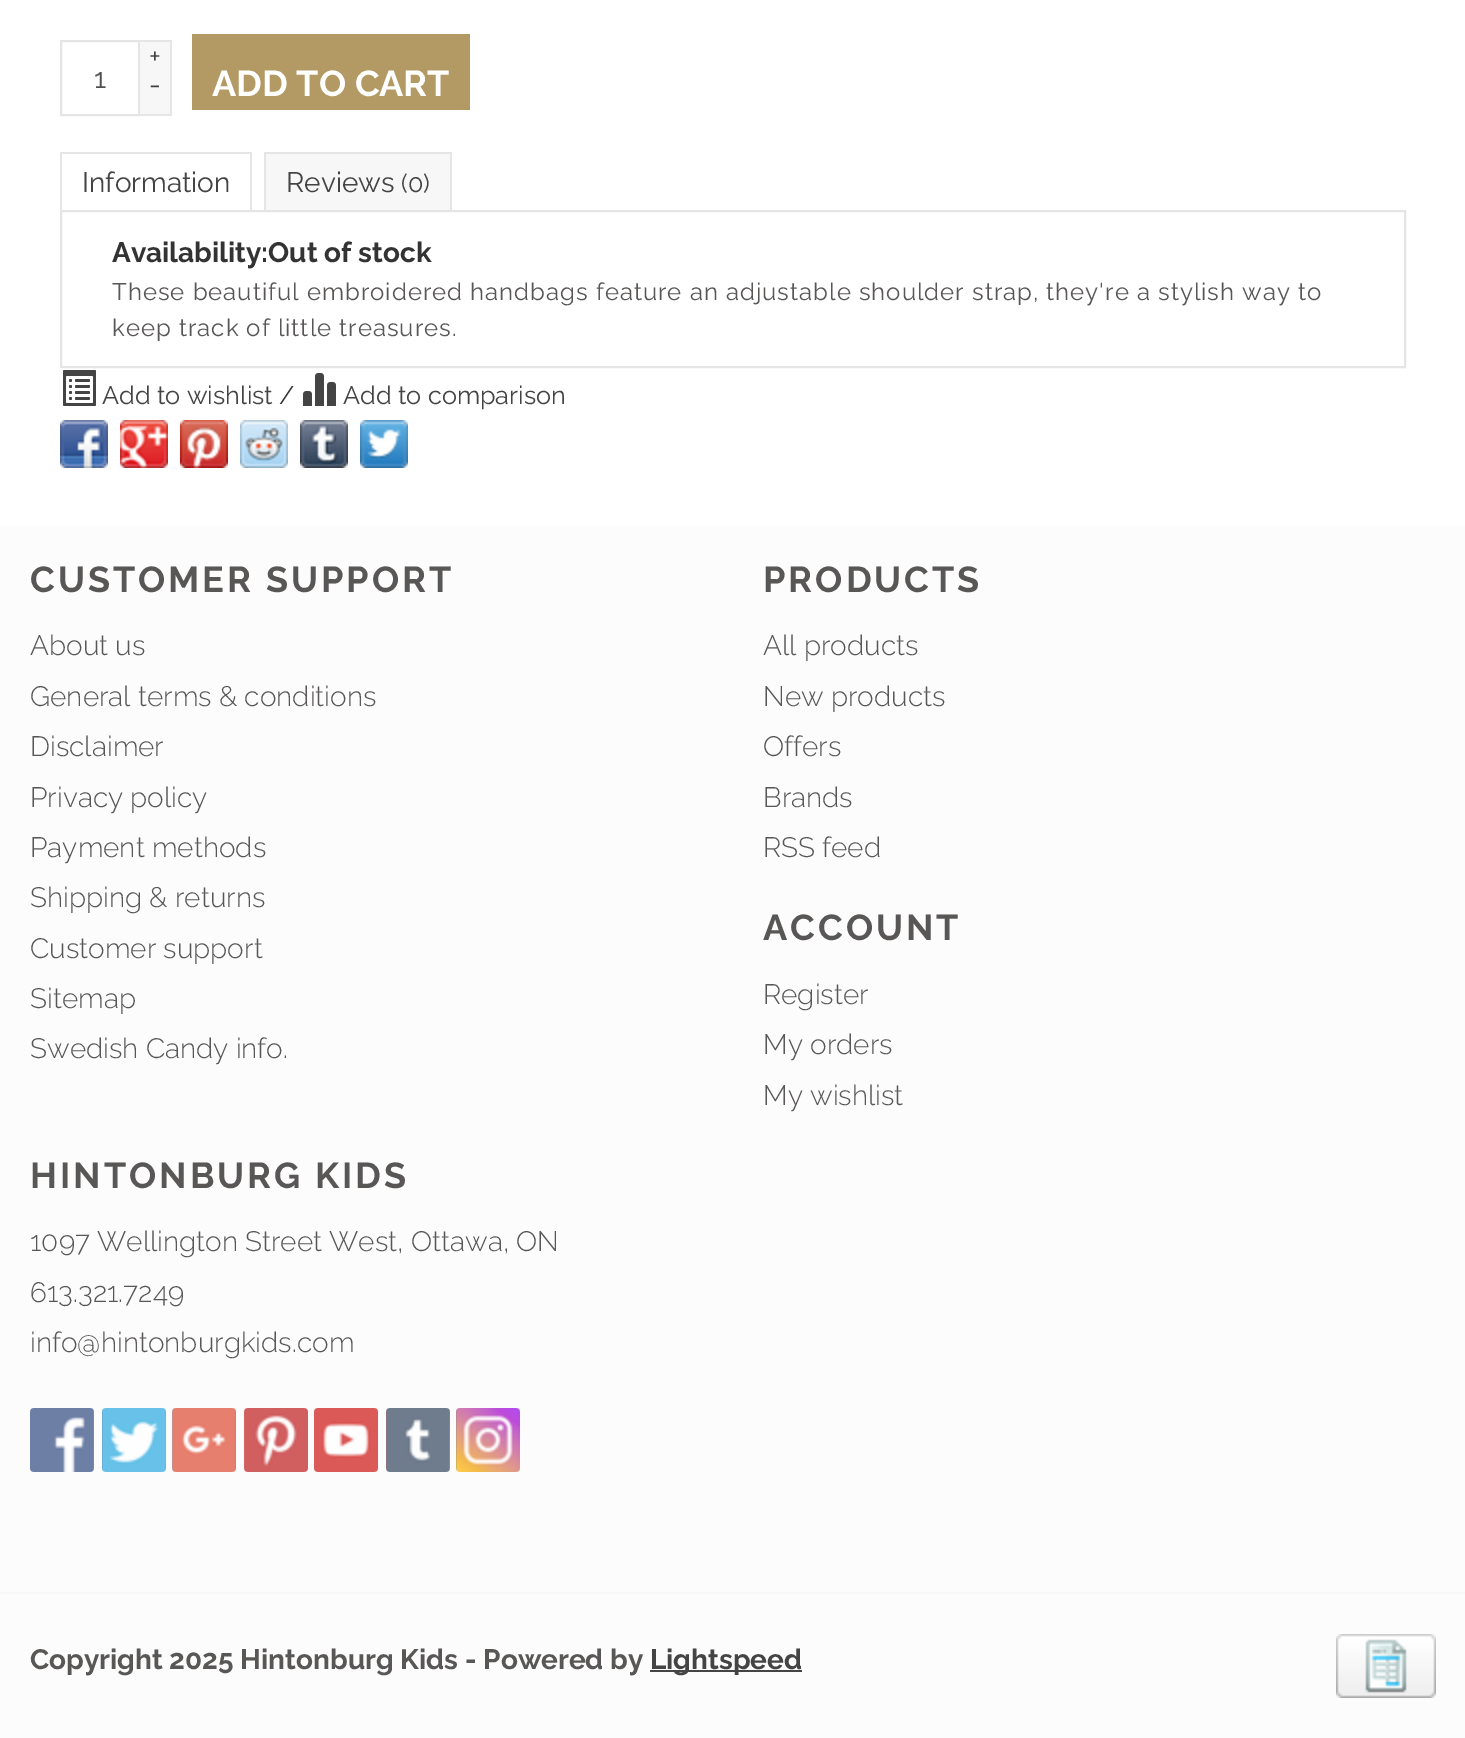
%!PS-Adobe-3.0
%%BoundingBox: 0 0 1465 1738
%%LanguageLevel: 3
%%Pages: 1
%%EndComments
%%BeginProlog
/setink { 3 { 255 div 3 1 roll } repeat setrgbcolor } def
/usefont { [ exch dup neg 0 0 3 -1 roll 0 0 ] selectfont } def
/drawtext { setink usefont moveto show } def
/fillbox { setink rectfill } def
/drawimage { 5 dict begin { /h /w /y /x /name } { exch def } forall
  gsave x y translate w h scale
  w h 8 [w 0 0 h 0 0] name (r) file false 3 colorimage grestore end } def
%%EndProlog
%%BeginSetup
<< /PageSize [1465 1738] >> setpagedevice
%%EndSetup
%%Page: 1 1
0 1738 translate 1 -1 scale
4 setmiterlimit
0 0 1465 1738 255 255 255 fillbox
229 229 229 setink
2 setlinewidth
61 41 78 74 rectstroke
(1) 94 88 /Raleway-Regular 28 81 80 80 drawtext
140 42 30 72 247 247 247 fillbox
140 40 32 2 229 229 229 fillbox
170 40 2 76 229 229 229 fillbox
140 114 32 2 229 229 229 fillbox
(+) 149 66 /Raleway-Regular 28 68 68 68 drawtext
(-) 149 94 /Raleway-Regular 28 68 68 68 drawtext
192 34 278 76 179 153 100 fillbox
(ADD TO CART) 212 96 /Raleway-Bold 36 255 255 255 drawtext
60 152 192 2 229 229 229 fillbox
250 152 2 60 229 229 229 fillbox
60 152 2 60 229 229 229 fillbox
(Information) 82 192 /Raleway-Regular 28 68 68 68 drawtext
266 154 184 56 247 247 247 fillbox
264 152 188 2 229 229 229 fillbox
450 152 2 60 229 229 229 fillbox
264 152 2 60 229 229 229 fillbox
(Reviews) 286 192 /Raleway-Regular 28 68 68 68 drawtext
(\(0\)) 401 192 /Raleway-Regular 25.25 68 68 68 drawtext
229 229 229 setink
61 211 1344 156 rectstroke
(Availability:Out of stock) 112 262 /Raleway-Bold 28 51 51 51 drawtext
/Raleway-Regular 24 usefont
89 86 86 setink
112 300 moveto 1 0 (These beautiful embroidered handbags feature an adjustable shoulder strap, they're a stylish way to) ashow
112 336 moveto 1 0 (keep track of little treasures.) ashow
(assets/img1.rgb) 63 370 33 36 drawimage
(Add to wishlist) 102 404 /Raleway-Regular 25.25 68 68 68 drawtext
(/) 279 404 /Raleway-Regular 25.25 51 51 51 drawtext
(assets/img2.rgb) 303 373 33 33 drawimage
(Add to comparison) 343 404 /Raleway-Regular 25.25 68 68 68 drawtext
(assets/img3.rgb) 60 420 48 48 drawimage
(assets/img4.rgb) 120 420 48 48 drawimage
(assets/img5.rgb) 180 420 48 48 drawimage
(assets/img6.rgb) 240 420 48 48 drawimage
(assets/img7.rgb) 300 420 48 48 drawimage
(assets/img8.rgb) 360 420 48 48 drawimage
0 526 1465 1212 252 252 252 fillbox
/Raleway-Bold 36 usefont
89 86 86 setink
30 592 moveto 3 0 (CUSTOMER SUPPORT) ashow
(About us) 30 655 /Raleway-Light 28 89 86 86 drawtext
(General terms & conditions) 30 706 /Raleway-Light 28 89 86 86 drawtext
(Disclaimer) 30 756 /Raleway-Light 28 89 86 86 drawtext
(Privacy policy) 30 807 /Raleway-Light 28 89 86 86 drawtext
(Payment methods) 30 857 /Raleway-Light 28 89 86 86 drawtext
(Shipping & returns) 30 907 /Raleway-Light 28 89 86 86 drawtext
(Customer support) 30 958 /Raleway-Light 28 89 86 86 drawtext
(Sitemap) 30 1008 /Raleway-Light 28 89 86 86 drawtext
(Swedish Candy info.) 30 1058 /Raleway-Light 28 89 86 86 drawtext
/Raleway-Bold 36 usefont
763 592 moveto 3 0 (PRODUCTS) ashow
(All products) 763 655 /Raleway-Light 28 89 86 86 drawtext
(New products) 763 706 /Raleway-Light 28 89 86 86 drawtext
(Offers) 763 756 /Raleway-Light 28 89 86 86 drawtext
(Brands) 763 807 /Raleway-Light 28 89 86 86 drawtext
(RSS feed) 763 857 /Raleway-Light 28 89 86 86 drawtext
/Raleway-Bold 36 usefont
763 940 moveto 3 0 (ACCOUNT) ashow
(Register) 763 1004 /Raleway-Light 28 89 86 86 drawtext
(My orders) 763 1054 /Raleway-Light 28 89 86 86 drawtext
(My wishlist) 763 1105 /Raleway-Light 28 89 86 86 drawtext
/Raleway-Bold 36 usefont
30 1188 moveto 3 0 (HINTONBURG KIDS) ashow
(1097 Wellington Street West, Ottawa, ON) 30 1251 /Raleway-Light 28 89 86 86 drawtext
(613.321.7249) 30 1302 /Raleway-Light 28 89 86 86 drawtext
(info@hintonburgkids.com) 30 1352 /Raleway-Light 28 89 86 86 drawtext
(assets/img9.rgb) 30 1408 64 64 drawimage
(assets/img10.rgb) 102 1408 64 64 drawimage
(assets/img11.rgb) 172 1408 64 64 drawimage
(assets/img12.rgb) 244 1408 64 64 drawimage
(assets/img13.rgb) 314 1408 64 64 drawimage
(assets/img14.rgb) 386 1408 64 64 drawimage
(assets/img15.rgb) 456 1408 64 64 drawimage
0 1592 1465 2 247 247 247 fillbox
(Copyright 2025 Hintonburg Kids - Powered by) 30 1669 /Raleway-Bold 28 89 86 86 drawtext
650 1670 152 2 68 68 68 fillbox
(Lightspeed) 650 1669 /Raleway-Bold 28 68 68 68 drawtext
(assets/img16.rgb) 1336 1634 100 64 drawimage
showpage
%%EOF
